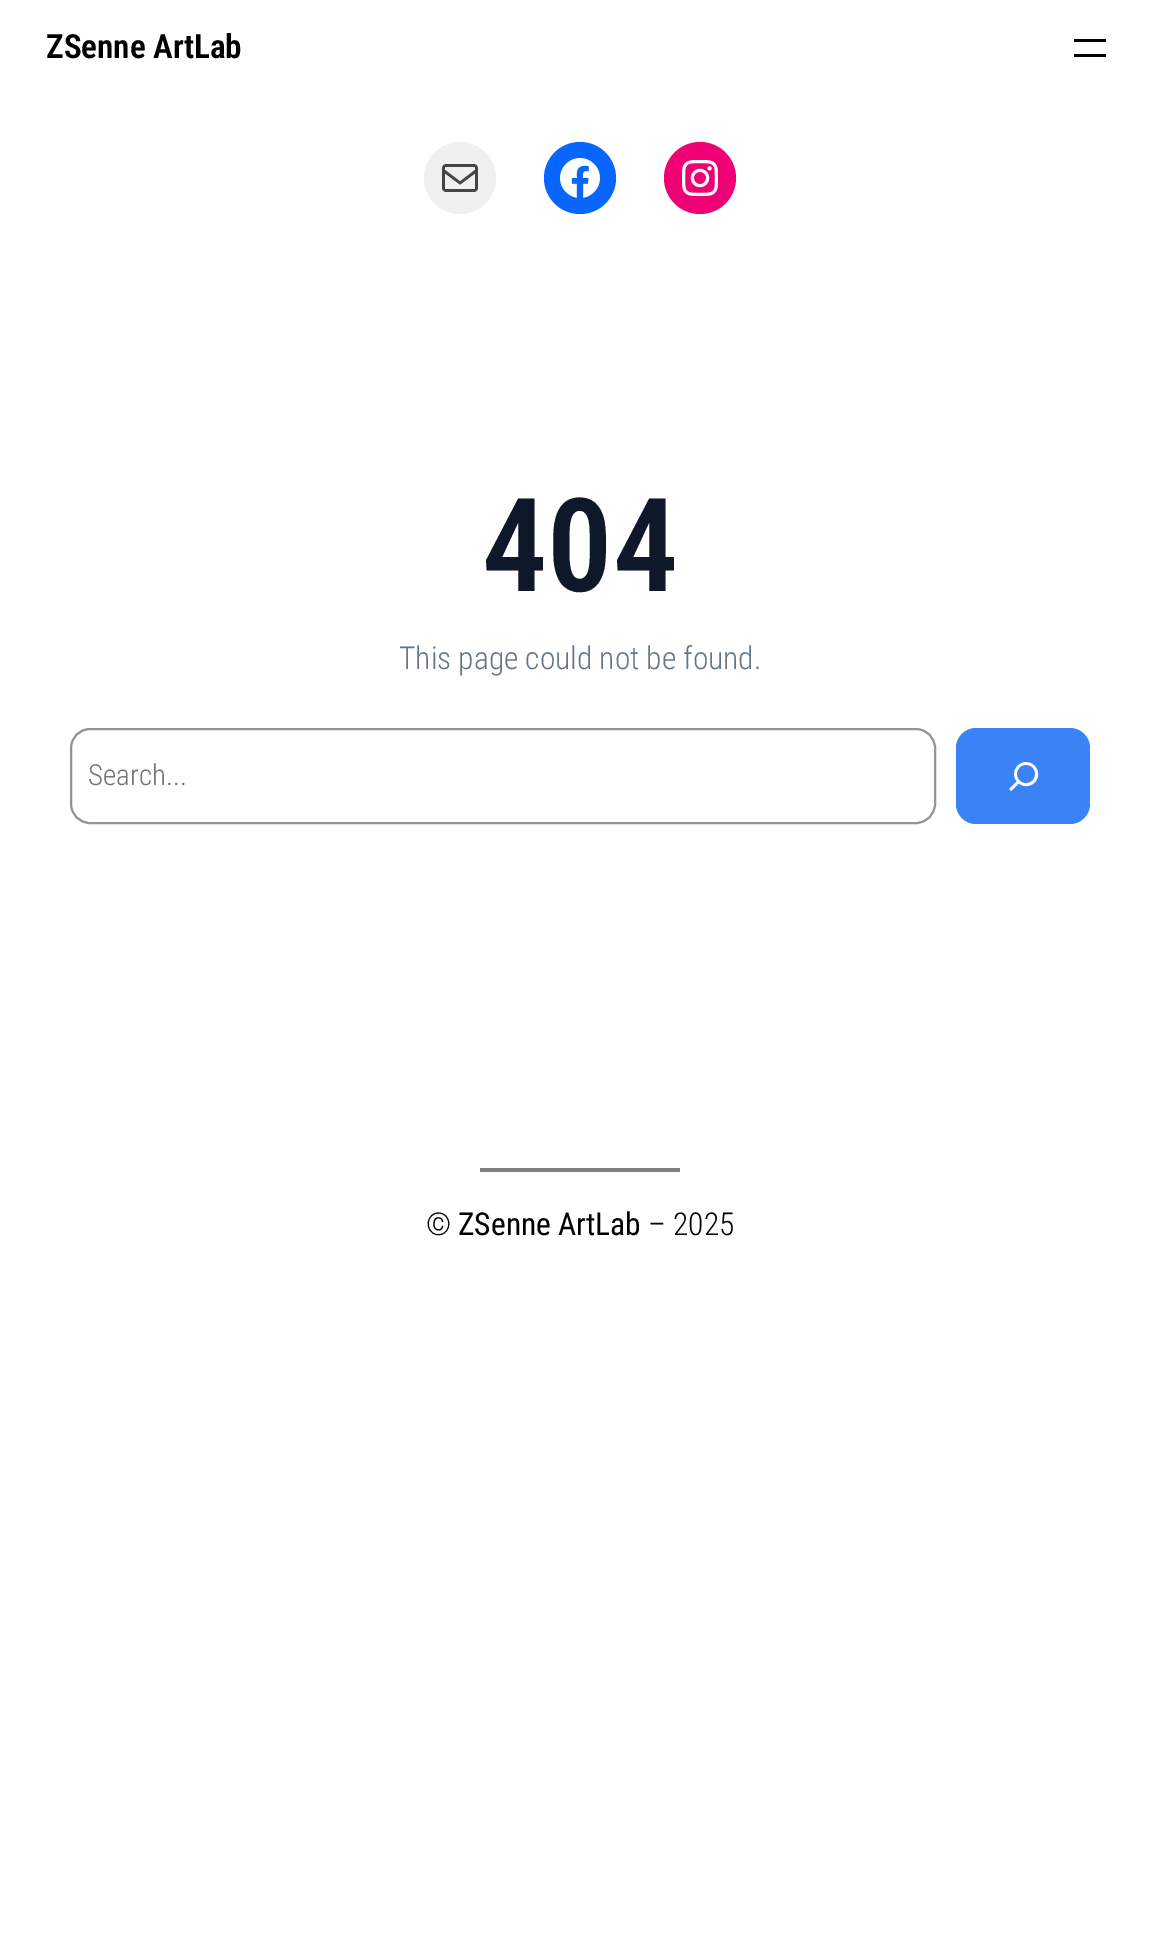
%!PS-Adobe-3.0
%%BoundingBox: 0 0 1159 1955
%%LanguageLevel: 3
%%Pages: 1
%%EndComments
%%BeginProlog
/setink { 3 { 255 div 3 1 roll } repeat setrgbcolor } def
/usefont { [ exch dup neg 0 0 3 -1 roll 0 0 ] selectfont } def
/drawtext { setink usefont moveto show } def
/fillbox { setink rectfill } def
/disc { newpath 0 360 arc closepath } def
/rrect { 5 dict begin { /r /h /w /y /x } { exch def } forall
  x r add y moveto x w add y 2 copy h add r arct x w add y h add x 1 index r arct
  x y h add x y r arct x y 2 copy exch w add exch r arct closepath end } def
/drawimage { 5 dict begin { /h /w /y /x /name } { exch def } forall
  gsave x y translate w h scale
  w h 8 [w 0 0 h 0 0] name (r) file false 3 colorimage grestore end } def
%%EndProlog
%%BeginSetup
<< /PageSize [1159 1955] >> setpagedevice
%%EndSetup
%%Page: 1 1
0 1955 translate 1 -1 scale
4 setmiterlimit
0 0 1159 1955 255 255 255 fillbox
(ZSenne ArtLab) 46 58 /RobotoCondensed-SemiBold 33.25 0 0 0 drawtext
1074 39 32 3 0 0 0 fillbox
1074 54 32 3 0 0 0 fillbox
240 240 240 setink
460 178 36 disc fill
(assets/img1.rgb) 442 164 36 28 drawimage
8 102 255 setink
580 178 36 disc fill
(assets/img2.rgb) 560 158 40 40 drawimage
240 0 117 setink
700 178 36 disc fill
(assets/img3.rgb) 682 160 36 36 drawimage
(404) 482 591 /RobotoCondensed-SemiBold 130 15 23 42 drawtext
(This page could not be found.) 399 669 /RobotoCondensed-Light 31.5 100 116 139 drawtext
148 148 148 setink
2 setlinewidth
71 729 864 94 19 rrect stroke
(Search...) 88 785 /RobotoCondensed-Light 29 117 117 117 drawtext
59 130 246 setink
956 728 134 96 20 rrect fill
(assets/img4.rgb) 1009 762 30 30 drawimage
480 1168 200 4 128 128 128 fillbox
(©) 426 1235 /RobotoCondensed-Light 31.5 0 0 0 drawtext
(ZSenne ArtLab) 458 1235 /RobotoCondensed-Regular 31.5 0 0 0 drawtext
(– 2025) 648 1235 /RobotoCondensed-Light 31.5 0 0 0 drawtext
showpage
%%EOF
